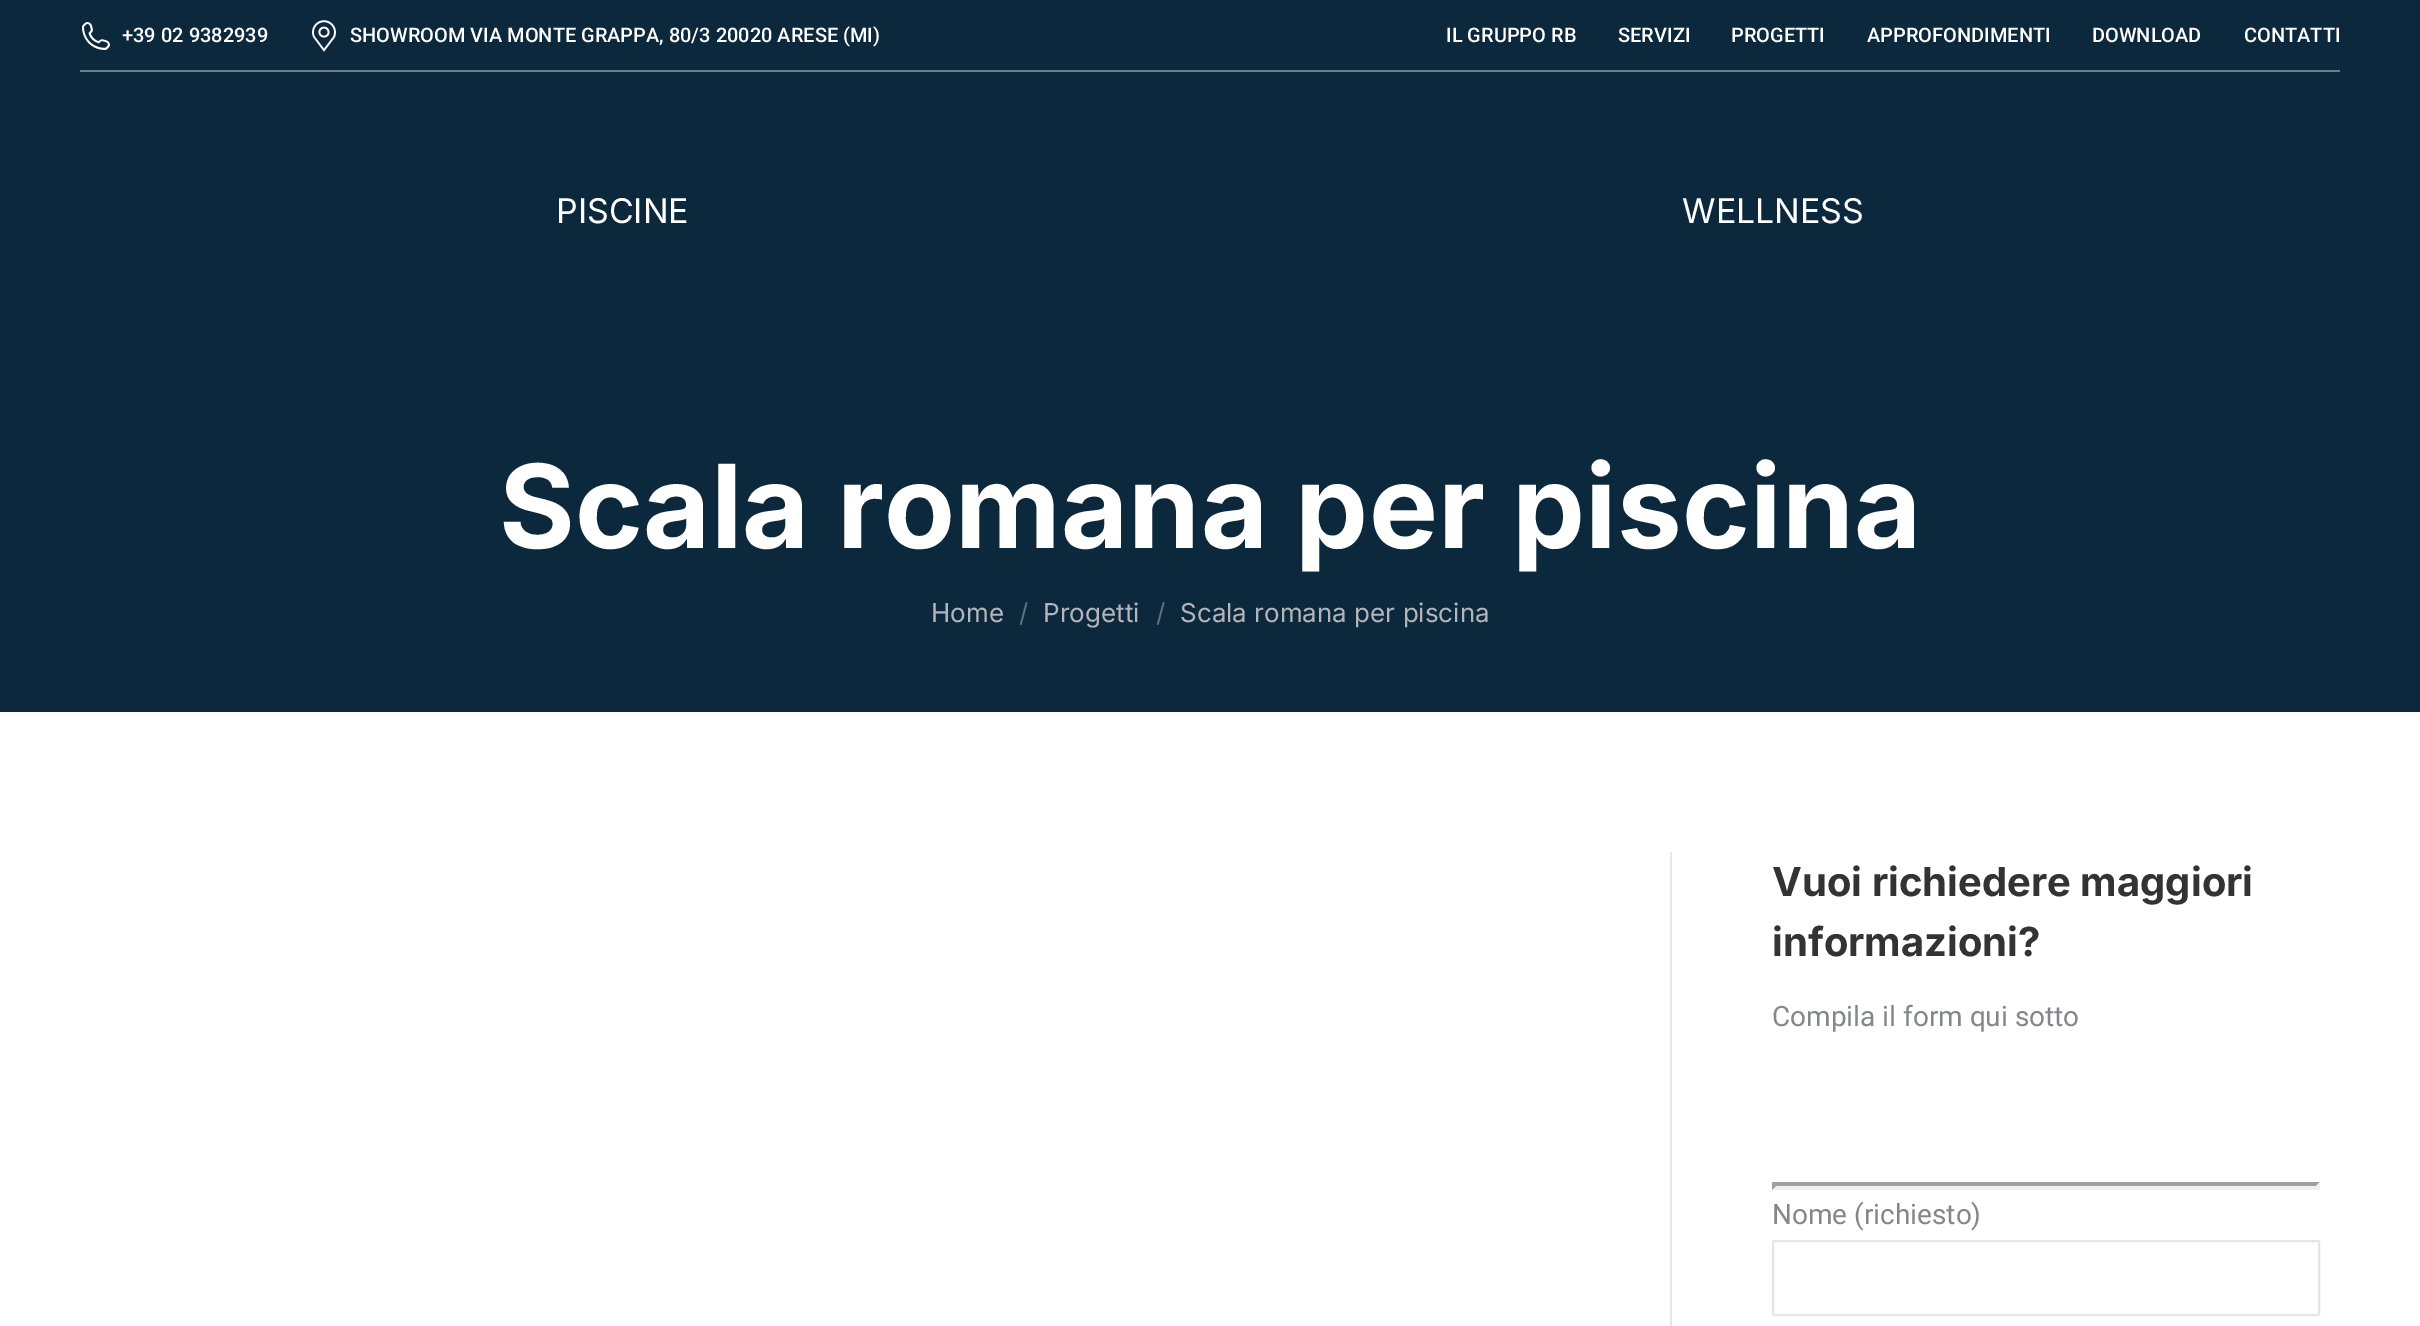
%!PS-Adobe-3.0
%%BoundingBox: 0 0 2420 1326
%%LanguageLevel: 3
%%Pages: 1
%%EndComments
%%BeginProlog
/setink { 3 { 255 div 3 1 roll } repeat setrgbcolor } def
/usefont { [ exch dup neg 0 0 3 -1 roll 0 0 ] selectfont } def
/drawtext { setink usefont moveto show } def
/fillbox { setink rectfill } def
/rrect { 5 dict begin { /r /h /w /y /x } { exch def } forall
  x r add y moveto x w add y 2 copy h add r arct x w add y h add x 1 index r arct
  x y h add x y r arct x y 2 copy exch w add exch r arct closepath end } def
/drawimage { 5 dict begin { /h /w /y /x /name } { exch def } forall
  gsave x y translate w h scale
  w h 8 [w 0 0 h 0 0] name (r) file false 3 colorimage grestore end } def
%%EndProlog
%%BeginSetup
<< /PageSize [2420 1326] >> setpagedevice
%%EndSetup
%%Page: 1 1
0 1326 translate 1 -1 scale
4 setmiterlimit
0 0 2420 1326 255 255 255 fillbox
0 0 2420 712 12 40 60 fillbox
(assets/img1.rgb) 82 22 28 28 drawimage
(+39 02 9382939) 122 42 /Roboto-Medium 20 255 255 255 drawtext
(assets/img2.rgb) 312 20 24 32 drawimage
(SHOWROOM VIA MONTE GRAPPA, 80/3 20020 ARESE \(MI\)) 350 42 /Roboto-Medium 20 255 255 255 drawtext
(IL GRUPPO RB) 1446 42 /Roboto-Medium 20 255 255 255 drawtext
(SERVIZI) 1618 42 /Roboto-Medium 20 255 255 255 drawtext
(PROGETTI) 1731 42 /Roboto-Medium 20 255 255 255 drawtext
(APPROFONDIMENTI) 1867 42 /Roboto-Medium 20 255 255 255 drawtext
(DOWNLOAD) 2092 42 /Roboto-Medium 20 255 255 255 drawtext
(CONTATTI) 2244 42 /Roboto-Medium 20 255 255 255 drawtext
80 70 2260 2 109 126 138 fillbox
(PISCINE) 556 223 /Inter-Regular 34 255 255 255 drawtext
(WELLNESS) 1682 223 /Inter-Regular 34 255 255 255 drawtext
(Scala romana per piscina) 499 548 /Inter-Bold 116 255 255 255 drawtext
(Home) 931 622 /Inter-Regular 26 180 181 187 drawtext
(/) 1019 622 /Inter-Regular 26 96 111 124 drawtext
(Progetti) 1043 622 /Inter-Regular 26 180 181 187 drawtext
(/) 1156 622 /Inter-Regular 26 96 111 124 drawtext
(Scala romana per piscina) 1180 622 /Inter-Regular 26 180 181 187 drawtext
1670 852 2 474 231 231 231 fillbox
(Vuoi richiedere maggiori) 1772 896 /Inter-Bold 40 51 51 51 drawtext
(informazioni?) 1772 956 /Inter-Bold 40 51 51 51 drawtext
(Compila il form qui sotto) 1772 1026 /Roboto-Regular 28 133 134 140 drawtext
159 159 159 setink
1772 1182 moveto 2320 1182 lineto 2316 1186 lineto 1776 1186 lineto closepath fill
239 239 239 setink
2320 1182 moveto 2320 1190 lineto 2316 1186 lineto closepath fill
2320 1190 moveto 1772 1190 lineto 1776 1186 lineto 2316 1186 lineto closepath fill
159 159 159 setink
1772 1190 moveto 1772 1182 lineto 1776 1186 lineto closepath fill
(Nome \(richiesto\)) 1772 1224 /Roboto-Regular 28 133 134 140 drawtext
229 229 229 setink
2 setlinewidth
1773 1241 546 74 1 rrect stroke
showpage
%%EOF
